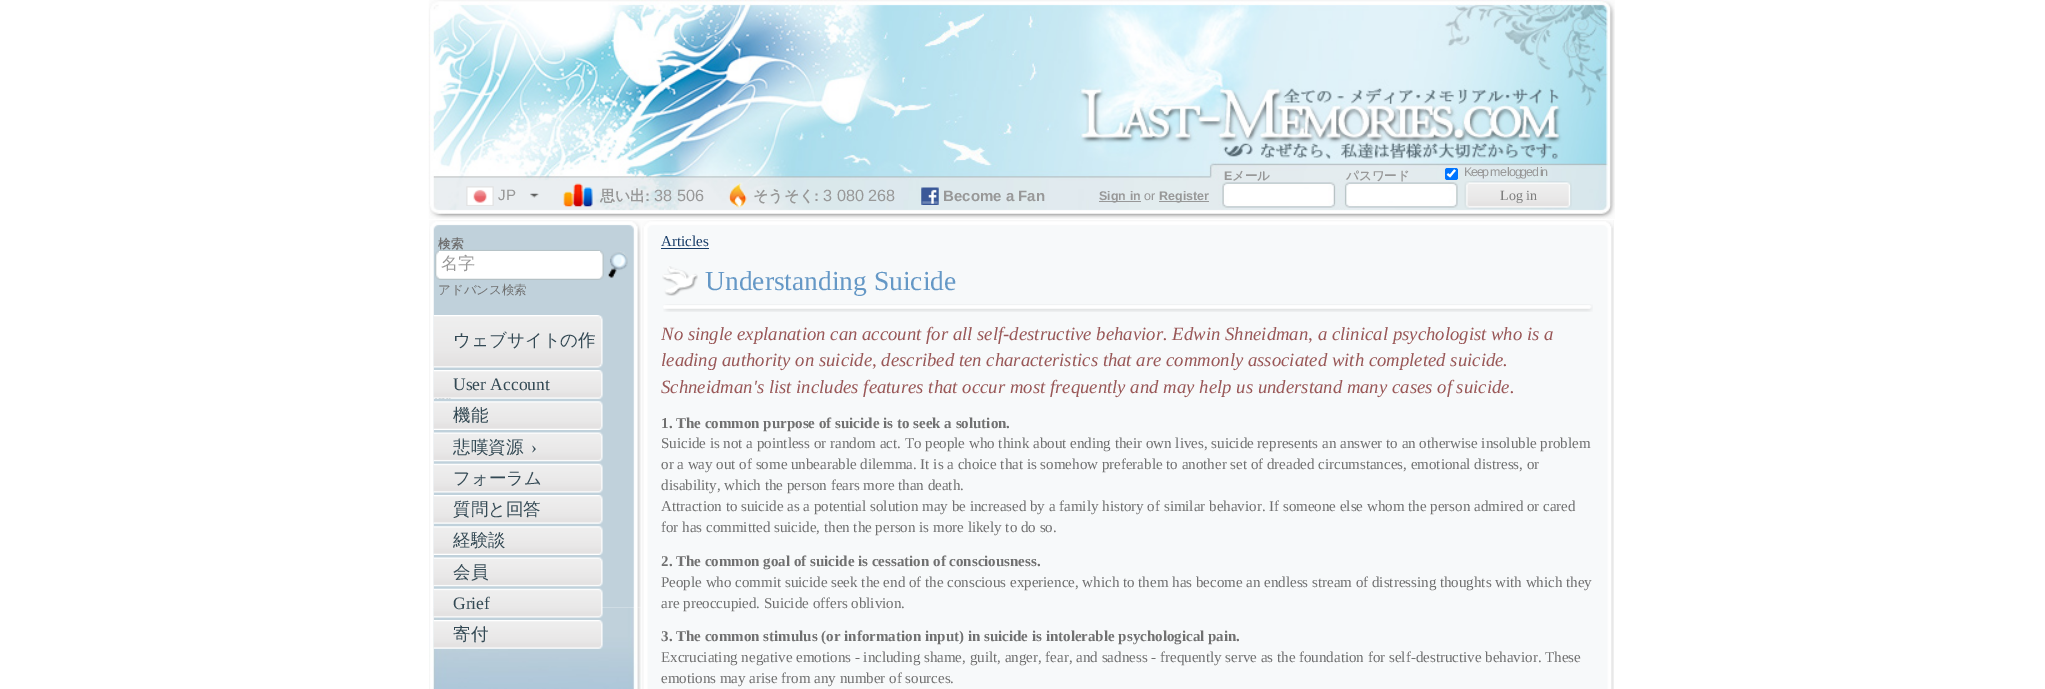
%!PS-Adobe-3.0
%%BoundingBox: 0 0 2045 689
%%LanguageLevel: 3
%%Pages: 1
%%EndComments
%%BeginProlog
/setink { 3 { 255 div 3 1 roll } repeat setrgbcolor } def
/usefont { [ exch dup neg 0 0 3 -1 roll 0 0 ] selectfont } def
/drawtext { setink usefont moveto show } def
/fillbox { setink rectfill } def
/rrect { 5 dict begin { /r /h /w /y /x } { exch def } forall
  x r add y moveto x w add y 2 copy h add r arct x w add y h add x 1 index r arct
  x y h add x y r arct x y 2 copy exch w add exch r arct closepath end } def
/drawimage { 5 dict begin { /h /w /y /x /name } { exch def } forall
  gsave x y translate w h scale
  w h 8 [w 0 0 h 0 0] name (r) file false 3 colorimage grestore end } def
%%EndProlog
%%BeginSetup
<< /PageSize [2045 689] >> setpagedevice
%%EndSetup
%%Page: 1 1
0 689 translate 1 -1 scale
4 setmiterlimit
0 0 2045 689 255 255 255 fillbox
(assets/img1.rgb) 428 0 1187 219 drawimage
(assets/img2.rgb) 466 186 28 20 drawimage
(JP) 498 200 /LiberationSans-Regular 15 152 152 152 drawtext
(assets/img3.rgb) 530 193 9 5 drawimage
(assets/img4.rgb) 563 183 30 24 drawimage
(思い出) 600 201 /WenQuanYiZenHei-Bold 15 152 152 152 drawtext
(:) 645 201 /LiberationSans-Bold 15 152 152 152 drawtext
(38 506) 654 201 /LiberationSans-Regular 16.25 152 152 152 drawtext
(assets/img5.rgb) 728 182 19 26 drawimage
(そうそく) 753 201 /WenQuanYiZenHei-Bold 15 152 152 152 drawtext
(:) 814 201 /LiberationSans-Bold 15 152 152 152 drawtext
(3 080 268) 823 201 /LiberationSans-Regular 16.25 152 152 152 drawtext
(assets/img6.rgb) 921 187 18 18 drawimage
(Become a Fan) 943 201 /LiberationSans-Bold 15 152 152 152 drawtext
(E) 1224 180 /LiberationSans-Bold 12.5 152 152 152 drawtext
(メール) 1232 180 /WenQuanYiZenHei-Bold 12.5 152 152 152 drawtext
(パスワード) 1346 180 /WenQuanYiZenHei-Bold 12.5 152 152 152 drawtext
0 117 255 setink
1445 168 13 12 2.5 rrect fill
255 255 255 setink
2 setlinewidth
1447.5 174 moveto 1450 176 lineto 1455 170 lineto stroke
/LiberationSans-Regular 12.5 usefont
152 152 152 setink
1464 176 moveto -1.25 0 (Keep me logged in) ashow
1099 201 42 1 152 152 152 fillbox
(Sign in) 1099 200 /LiberationSans-Bold 12.5 152 152 152 drawtext
(or) 1144 200 /LiberationSans-Regular 12.5 152 152 152 drawtext
1159 201 50 1 152 152 152 fillbox
(Register) 1159 200 /LiberationSans-Bold 12.5 152 152 152 drawtext
(assets/img7.rgb) 1464 181 108 28 drawimage
(Log in) 1500 200 /LiberationSerif-Regular 14 125 125 125 drawtext
(assets/img8.rgb) 429 220 212 60 drawimage
(検索) 438 248 /WenQuanYiZenHei-Bold 12.5 112 112 112 drawtext
439 251 161 27 255 255 255 fillbox
(名字) 441 269 /WenQuanYiZenHei-Medium 17 152 152 152 drawtext
(assets/img9.rgb) 608 251 20 28 drawimage
(assets/img10.rgb) 429 280 212 328 drawimage
(アドバンス検索) 438 294 /WenQuanYiZenHei-Medium 12.5 112 112 112 drawtext
(assets/img11.rgb) 433 315 170 53 drawimage
(ウェブサイトの作) 453 346 /WenQuanYiZenHei-Medium 17.5 51 73 84 drawtext
(assets/img12.rgb) 433 370 170 29 drawimage
(User Account) 453 390 /LiberationSerif-Regular 17.5 51 73 84 drawtext
(assets/img13.rgb) 433 401 170 29 drawimage
(機能) 453 421 /WenQuanYiZenHei-Medium 17.5 51 73 84 drawtext
(assets/img14.rgb) 433 432 170 30 drawimage
(悲嘆資源) 453 453 /WenQuanYiZenHei-Medium 17.5 51 73 84 drawtext
(›) 531 453 /LiberationSerif-Regular 17.5 51 73 84 drawtext
(assets/img15.rgb) 433 463 170 30 drawimage
(フォーラム) 453 484 /WenQuanYiZenHei-Medium 17.5 51 73 84 drawtext
(assets/img16.rgb) 433 495 170 29 drawimage
(質問と回答) 453 515 /WenQuanYiZenHei-Medium 17.5 51 73 84 drawtext
(assets/img17.rgb) 433 526 170 29 drawimage
(経験談) 453 546 /WenQuanYiZenHei-Medium 17.5 51 73 84 drawtext
(assets/img14.rgb) 433 557 170 30 drawimage
(会員) 453 578 /WenQuanYiZenHei-Medium 17.5 51 73 84 drawtext
(assets/img20.rgb) 429 607 212 82 drawimage
(assets/img18.rgb) 433 588 170 30 drawimage
(Grief) 453 609 /LiberationSerif-Regular 17.5 51 73 84 drawtext
(assets/img19.rgb) 433 620 170 29 drawimage
(寄付) 453 640 /WenQuanYiZenHei-Medium 17.5 51 73 84 drawtext
641 220 973 469 252 252 252 fillbox
(assets/img21.rgb) 642 220 972 469 drawimage
(assets/img22.rgb) 642 220 972 8 drawimage
(Articles) 661 246 /LiberationSerif-Regular 15 23 60 104 drawtext
661 248 48 1 23 60 104 fillbox
(assets/img23.rgb) 662 266 36 30 drawimage
(Understanding Suicide) 705 290 /LiberationSerif-Regular 27.5 101 152 198 drawtext
(assets/img24.rgb) 663 304 930 8 drawimage
(No single explanation can account for all self-destructive behavior. Edwin Shneidman, a clinical psychologist who is a) 661 340 /LiberationSerif-Italic 18.75 153 87 87 drawtext
(leading authority on suicide, described ten characteristics that are commonly associated with completed suicide.) 661 366 /LiberationSerif-Italic 18.75 153 87 87 drawtext
(Schneidman's list includes features that occur most frequently and may help us understand many cases of suicide.) 661 393 /LiberationSerif-Italic 18.75 153 87 87 drawtext
(1. The common purpose of suicide is to seek a solution.) 661 428 /LiberationSerif-Bold 15 112 112 112 drawtext
(Suicide is not a pointless or random act. To people who think about ending their own lives, suicide represents an answer to an otherwise insoluble problem) 661 448 /LiberationSerif-Regular 15 112 112 112 drawtext
(or a way out of some unbearable dilemma. It is a choice that is somehow preferable to another set of dreaded circumstances, emotional distress, or) 661 469 /LiberationSerif-Regular 15 112 112 112 drawtext
(disability, which the person fears more than death.) 661 490 /LiberationSerif-Regular 15 112 112 112 drawtext
(Attraction to suicide as a potential solution may be increased by a family history of similar behavior. If someone else whom the person admired or cared) 661 511 /LiberationSerif-Regular 15 112 112 112 drawtext
(for has committed suicide, then the person is more likely to do so.) 661 532 /LiberationSerif-Regular 15 112 112 112 drawtext
(2. The common goal of suicide is cessation of consciousness.) 661 566 /LiberationSerif-Bold 15 112 112 112 drawtext
(People who commit suicide seek the end of the conscious experience, which to them has become an endless stream of distressing thoughts with which they) 661 587 /LiberationSerif-Regular 15 112 112 112 drawtext
(are preoccupied. Suicide offers oblivion.) 661 608 /LiberationSerif-Regular 15 112 112 112 drawtext
(3. The common stimulus \(or information input\) in suicide is intolerable psychological pain.) 661 641 /LiberationSerif-Bold 15 112 112 112 drawtext
(Excruciating negative emotions - including shame, guilt, anger, fear, and sadness - frequently serve as the foundation for self-destructive behavior. These) 661 662 /LiberationSerif-Regular 15 112 112 112 drawtext
(emotions may arise from any number of sources.) 661 683 /LiberationSerif-Regular 15 112 112 112 drawtext
showpage
%%EOF
